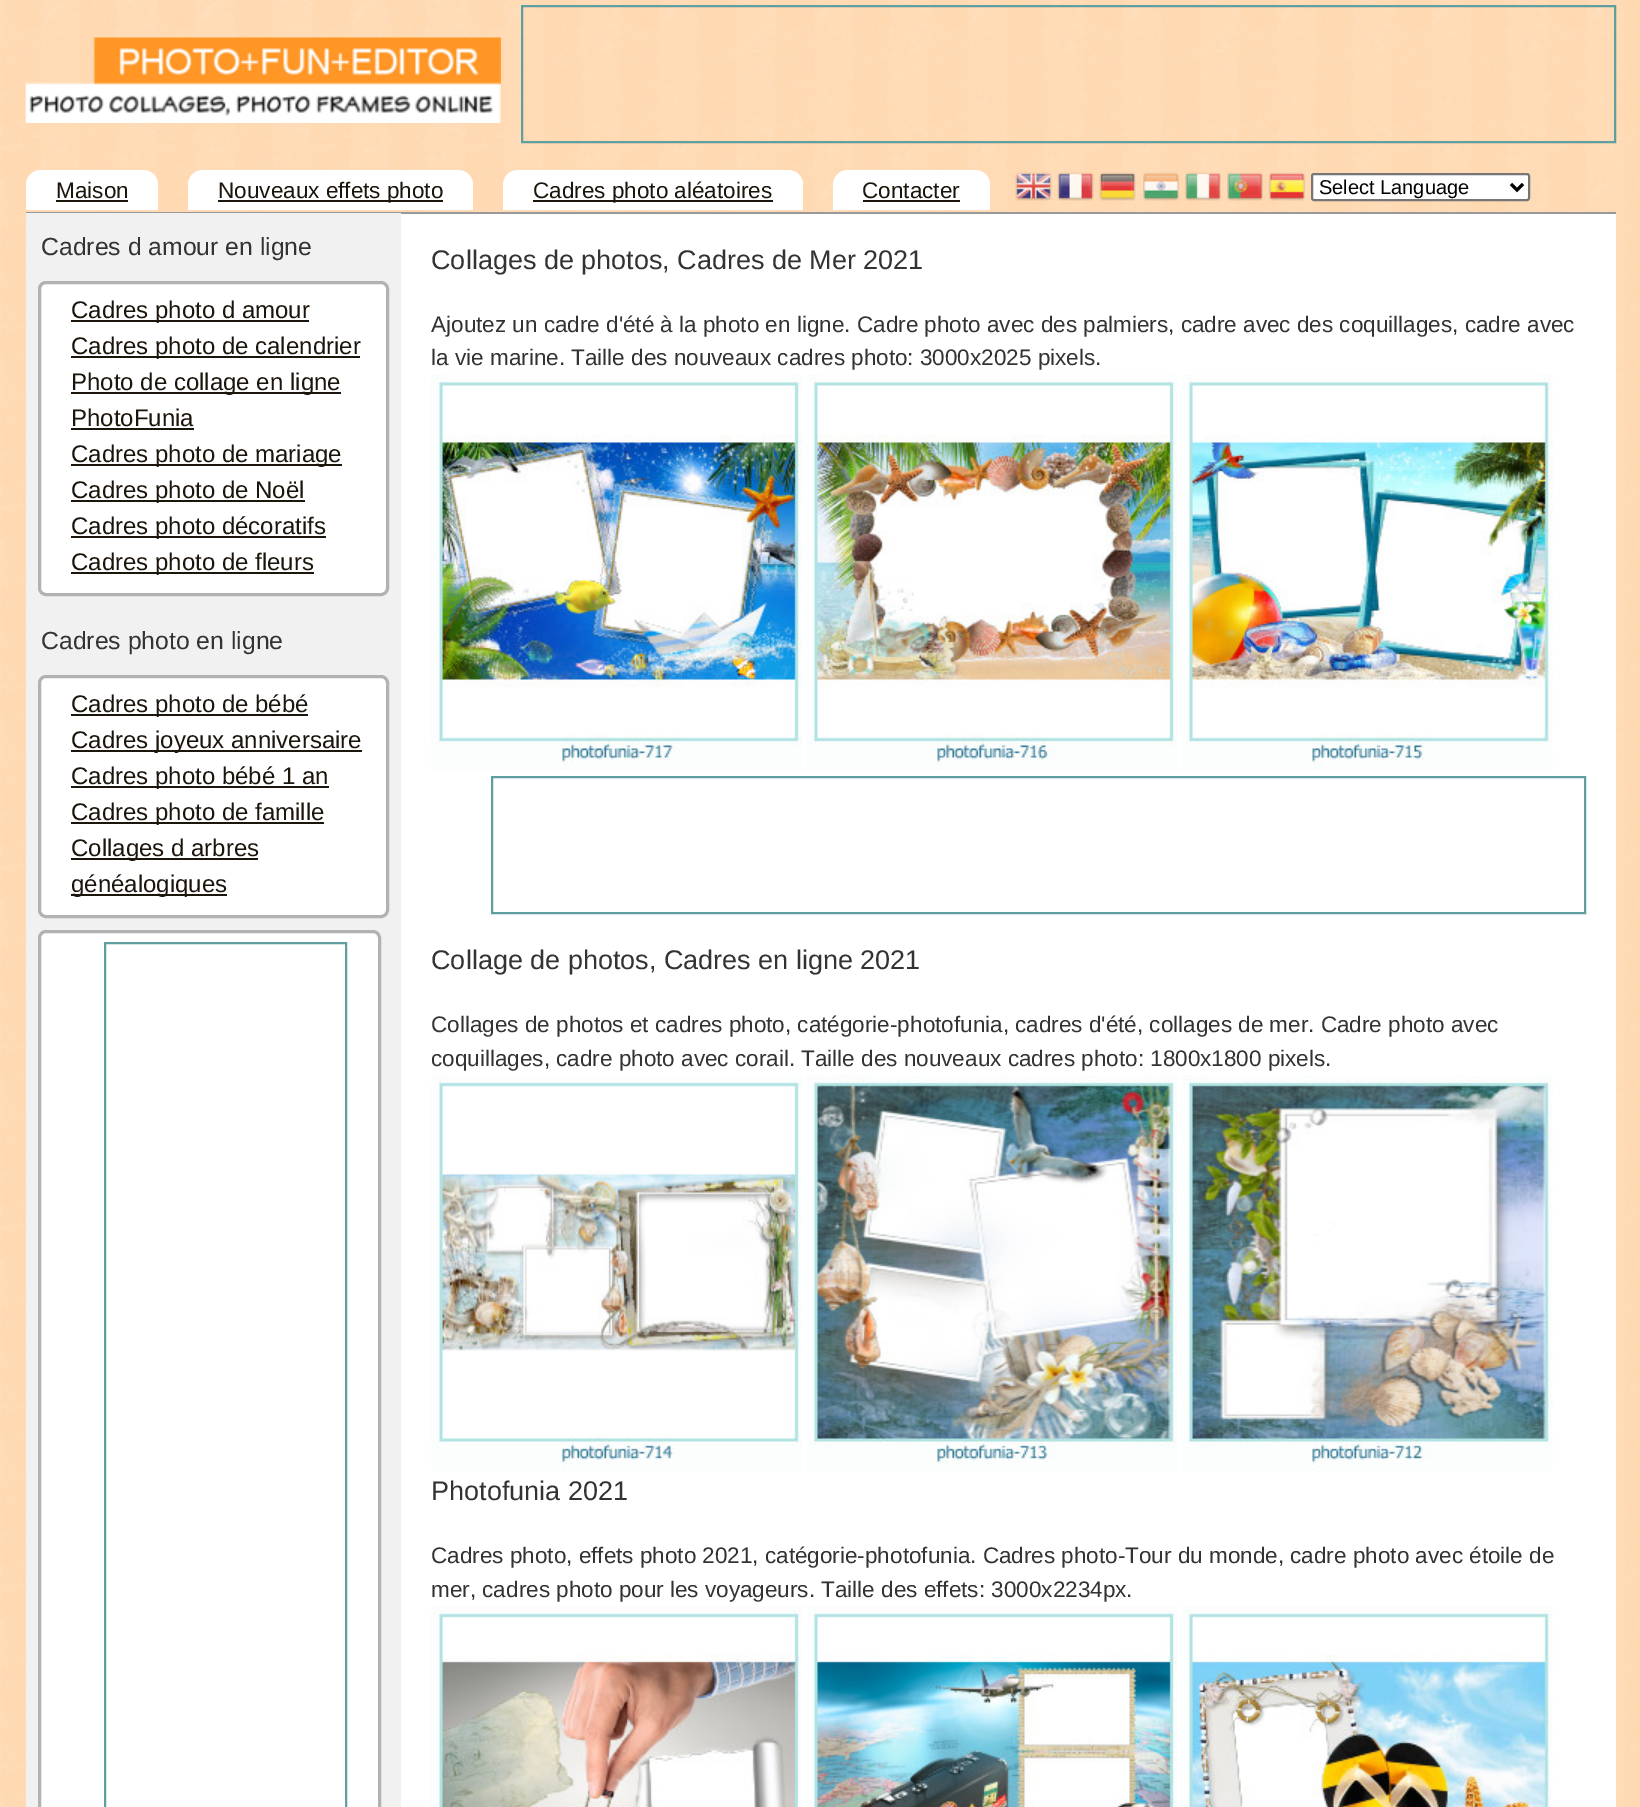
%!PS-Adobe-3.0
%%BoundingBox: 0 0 1640 1807
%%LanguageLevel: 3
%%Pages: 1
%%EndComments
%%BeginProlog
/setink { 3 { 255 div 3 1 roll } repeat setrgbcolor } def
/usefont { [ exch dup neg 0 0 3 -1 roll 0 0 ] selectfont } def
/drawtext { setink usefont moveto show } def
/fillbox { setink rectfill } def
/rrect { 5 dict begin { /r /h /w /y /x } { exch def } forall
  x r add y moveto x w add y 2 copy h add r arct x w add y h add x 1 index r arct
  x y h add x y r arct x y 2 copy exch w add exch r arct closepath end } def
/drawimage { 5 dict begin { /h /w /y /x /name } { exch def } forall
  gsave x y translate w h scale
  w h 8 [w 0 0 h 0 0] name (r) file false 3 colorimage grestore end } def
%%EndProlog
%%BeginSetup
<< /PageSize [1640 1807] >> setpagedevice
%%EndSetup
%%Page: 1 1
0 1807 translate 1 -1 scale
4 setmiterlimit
0 0 1640 1807 255 255 255 fillbox
(assets/img1.rgb) 0 0 1640 1807 drawimage
41 170 moveto 143 170 lineto 151.5 170 158 176.5 158 185 curveto 158 210 lineto 26 210 lineto 26 185 lineto 26 176.5 32.5 170 41 170 curveto closepath fill
(Maison) 56 198 /LiberationSans-Regular 22.5 28 21 12 drawtext
56 200 72 2 28 21 12 fillbox
255 255 255 setink
203 170 moveto 458 170 lineto 466.5 170 473 176.5 473 185 curveto 473 210 lineto 188 210 lineto 188 185 lineto 188 176.5 194.5 170 203 170 curveto closepath fill
218 200 225 2 28 21 12 fillbox
(Nouveaux effets photo) 218 198 /LiberationSans-Regular 22.5 28 21 12 drawtext
255 255 255 setink
518 170 moveto 788 170 lineto 796.5 170 803 176.5 803 185 curveto 803 210 lineto 503 210 lineto 503 185 lineto 503 176.5 509.5 170 518 170 curveto closepath fill
533 200 240 2 28 21 12 fillbox
(Cadres photo aléatoires) 533 198 /LiberationSans-Regular 22.5 28 21 12 drawtext
255 255 255 setink
848 170 moveto 975 170 lineto 983.5 170 990 176.5 990 185 curveto 990 210 lineto 833 210 lineto 833 185 lineto 833 176.5 839.5 170 848 170 curveto closepath fill
(Contacter) 862 198 /LiberationSans-Regular 22.5 28 21 12 drawtext
863 200 97 2 28 21 12 fillbox
(assets/img2.rgb) 25 37 476 86 drawimage
95 159 159 setink
2 setlinewidth
522 6 1093 136 rectstroke
(assets/img3.rgb) 1015 172 37 29 drawimage
(assets/img4.rgb) 1057 172 37 29 drawimage
(assets/img5.rgb) 1099 172 37 29 drawimage
(assets/img6.rgb) 1143 172 36 29 drawimage
(assets/img7.rgb) 1185 172 36 29 drawimage
(assets/img8.rgb) 1227 172 36 29 drawimage
(assets/img9.rgb) 1269 172 36 29 drawimage
255 255 255 setink
1312 174 217 26 2 rrect gsave fill grestore
118 118 118 setink
stroke
0 0 0 setink
3 setlinewidth
1511 184 moveto 1517 190 lineto 1523 184 lineto stroke
(Select Language) 1319 194 /LiberationSans-Regular 20 0 0 0 drawtext
401 214 1215 1593 255 255 255 fillbox
26 212 1590 2 153 153 153 fillbox
26 213 375 1594 241 241 241 fillbox
(Cadres d amour en ligne) 41 255 /LiberationSans-Regular 24.75 51 51 51 drawtext
255 255 255 setink
39.5 282.5 348 312 6.5 rrect gsave fill grestore
178 178 178 setink
stroke
71 320 238 2 28 21 12 fillbox
(Cadres photo d amour) 71 318 /LiberationSans-Regular 24 28 21 12 drawtext
71 356 289 2 28 21 12 fillbox
(Cadres photo de calendrier) 71 354 /LiberationSans-Regular 24 28 21 12 drawtext
71 392 270 2 28 21 12 fillbox
(Photo de collage en ligne) 71 390 /LiberationSans-Regular 24 28 21 12 drawtext
(PhotoFunia) 71 426 /LiberationSans-Regular 24 28 21 12 drawtext
71 428 123 2 28 21 12 fillbox
71 464 271 2 28 21 12 fillbox
(Cadres photo de mariage) 71 462 /LiberationSans-Regular 24 28 21 12 drawtext
71 500 234 2 28 21 12 fillbox
(Cadres photo de Noël) 71 498 /LiberationSans-Regular 24 28 21 12 drawtext
71 536 255 2 28 21 12 fillbox
(Cadres photo décoratifs) 71 534 /LiberationSans-Regular 24 28 21 12 drawtext
71 572 243 2 28 21 12 fillbox
(Cadres photo de fleurs) 71 570 /LiberationSans-Regular 24 28 21 12 drawtext
(Cadres photo en ligne) 41 649 /LiberationSans-Regular 24.75 51 51 51 drawtext
255 255 255 setink
39.5 676.5 348 240 6.5 rrect gsave fill grestore
178 178 178 setink
stroke
71 714 237 2 28 21 12 fillbox
(Cadres photo de bébé) 71 712 /LiberationSans-Regular 24 28 21 12 drawtext
71 750 291 2 28 21 12 fillbox
(Cadres joyeux anniversaire) 71 748 /LiberationSans-Regular 24 28 21 12 drawtext
71 786 258 2 28 21 12 fillbox
(Cadres photo bébé 1 an) 71 784 /LiberationSans-Regular 24 28 21 12 drawtext
71 822 253 2 28 21 12 fillbox
(Cadres photo de famille) 71 820 /LiberationSans-Regular 24 28 21 12 drawtext
71 858 187 2 28 21 12 fillbox
(Collages d arbres) 71 856 /LiberationSans-Regular 24 28 21 12 drawtext
71 894 156 2 28 21 12 fillbox
(généalogiques) 71 892 /LiberationSans-Regular 24 28 21 12 drawtext
255 255 255 setink
39.5 931.5 340 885 6.5 rrect gsave fill grestore
178 178 178 setink
stroke
95 159 159 setink
2 setlinewidth
105 943 241 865 rectstroke
(Collages de photos, Cadres de Mer 2021) 431 269 /LiberationSans-Regular 27 51 51 51 drawtext
(Ajoutez un cadre d'été à la photo en ligne. Cadre photo avec des palmiers, cadre avec des coquillages, cadre avec) 431 332 /LiberationSans-Regular 22.5 51 51 51 drawtext
(la vie marine. Taille des nouveaux cadres photo: 3000x2025 pixels.) 431 365 /LiberationSans-Regular 22.5 51 51 51 drawtext
(assets/img10.rgb) 431 375 372 396 drawimage
(assets/img11.rgb) 806 375 372 396 drawimage
(assets/img12.rgb) 1181 375 372 396 drawimage
95 159 159 setink
492 777 1093 136 rectstroke
(Collage de photos, Cadres en ligne 2021) 431 969 /LiberationSans-Regular 27 51 51 51 drawtext
(Collages de photos et cadres photo, catégorie-photofunia, cadres d'été, collages de mer. Cadre photo avec) 431 1032 /LiberationSans-Regular 22.5 51 51 51 drawtext
(coquillages, cadre photo avec corail. Taille des nouveaux cadres photo: 1800x1800 pixels.) 431 1066 /LiberationSans-Regular 22.5 51 51 51 drawtext
(assets/img13.rgb) 431 1075 372 397 drawimage
(assets/img14.rgb) 806 1075 372 397 drawimage
(assets/img15.rgb) 1181 1075 372 397 drawimage
(Photofunia 2021) 431 1500 /LiberationSans-Regular 27 51 51 51 drawtext
(Cadres photo, effets photo 2021, catégorie-photofunia. Cadres photo-Tour du monde, cadre photo avec étoile de) 431 1563 /LiberationSans-Regular 22.5 51 51 51 drawtext
(mer, cadres photo pour les voyageurs. Taille des effets: 3000x2234px.) 431 1597 /LiberationSans-Regular 22.5 51 51 51 drawtext
(assets/img16.rgb) 431 1606 372 201 drawimage
(assets/img17.rgb) 806 1606 372 201 drawimage
(assets/img18.rgb) 1181 1606 372 201 drawimage
showpage
%%EOF
